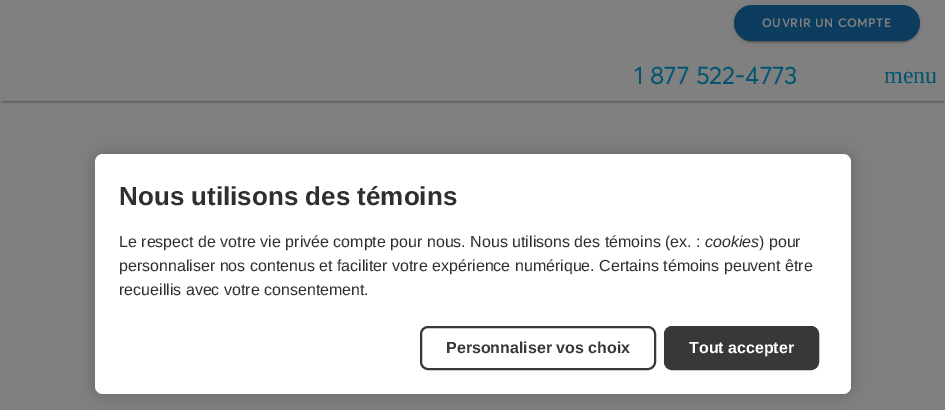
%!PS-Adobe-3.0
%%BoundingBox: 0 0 945 410
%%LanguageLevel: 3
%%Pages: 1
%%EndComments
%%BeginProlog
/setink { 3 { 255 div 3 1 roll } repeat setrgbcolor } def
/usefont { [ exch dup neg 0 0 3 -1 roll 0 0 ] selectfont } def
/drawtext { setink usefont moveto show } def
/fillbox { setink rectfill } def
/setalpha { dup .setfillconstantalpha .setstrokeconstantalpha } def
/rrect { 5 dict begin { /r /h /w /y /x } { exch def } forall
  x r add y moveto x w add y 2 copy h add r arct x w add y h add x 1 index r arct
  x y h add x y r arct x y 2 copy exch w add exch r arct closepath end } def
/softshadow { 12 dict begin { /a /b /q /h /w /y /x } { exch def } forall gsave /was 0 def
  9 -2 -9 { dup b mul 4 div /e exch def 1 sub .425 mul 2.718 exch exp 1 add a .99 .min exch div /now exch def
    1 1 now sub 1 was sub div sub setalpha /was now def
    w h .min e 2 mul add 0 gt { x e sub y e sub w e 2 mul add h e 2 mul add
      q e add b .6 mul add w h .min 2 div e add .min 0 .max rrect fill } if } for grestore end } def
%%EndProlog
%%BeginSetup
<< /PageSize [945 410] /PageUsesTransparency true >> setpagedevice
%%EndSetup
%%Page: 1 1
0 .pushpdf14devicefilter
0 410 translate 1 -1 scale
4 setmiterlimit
0 0 945 410 128 128 128 fillbox
gsave
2 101 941 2 rectclip
0 0 0 setink
2 5 941 97 0 0.5 0.2 softshadow
grestore
gsave
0 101 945 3 rectclip
0 0 0 setink
0 2 945 101 0 1 0.14 softshadow
grestore
0 0 0 setink
736 10 182 32 16 0.5 0.2 softshadow
734 6 186 36 18 2.5 0.12 softshadow
734 7 186 36 18 1 0.14 softshadow
12 61 95 setink
734 5 186 36 18 rrect fill
/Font-SemiBold 12 usefont
128 128 128 setink
762 27 moveto 0.5 0 (OUVRIR UN COMPTE) ashow
(1 877 522-4773) 634 84 /Font-Regular 25 0 86 113 drawtext
(menu) 884 83 /LiberationSerif-Regular 24 0 86 113 drawtext
0 0 0 setink
95 154 756 240 8 9 0.2 softshadow
255 255 255 setink
95 154 756 240 8 rrect fill
(Nous utilisons des témoins) 119 205 /LiberationSans-Bold 26 47 47 47 drawtext
(Le respect de votre vie privée compte pour nous. Nous utilisons des témoins \(ex. :) 119 247 /LiberationSans-Regular 16 47 47 47 drawtext
(cookies) 705 247 /LiberationSans-Italic 16 47 47 47 drawtext
(\) pour) 759 247 /LiberationSans-Regular 16 47 47 47 drawtext
(personnaliser nos contenus et faciliter votre expérience numérique. Certains témoins peuvent être) 119 271 /LiberationSans-Regular 16 47 47 47 drawtext
(recueillis avec votre consentement.) 119 295 /LiberationSans-Regular 16 47 47 47 drawtext
56 56 56 setink
2 setlinewidth
421 327 234 42 7 rrect stroke
(Personnaliser vos choix) 446 353 /LiberationSans-Bold 16 56 56 56 drawtext
664.5 326.5 154 43 7.5 rrect gsave fill grestore
1 setlinewidth
stroke
(Tout accepter) 689 353 /LiberationSans-Bold 16 255 255 255 drawtext
.poppdf14devicefilter showpage
%%EOF
